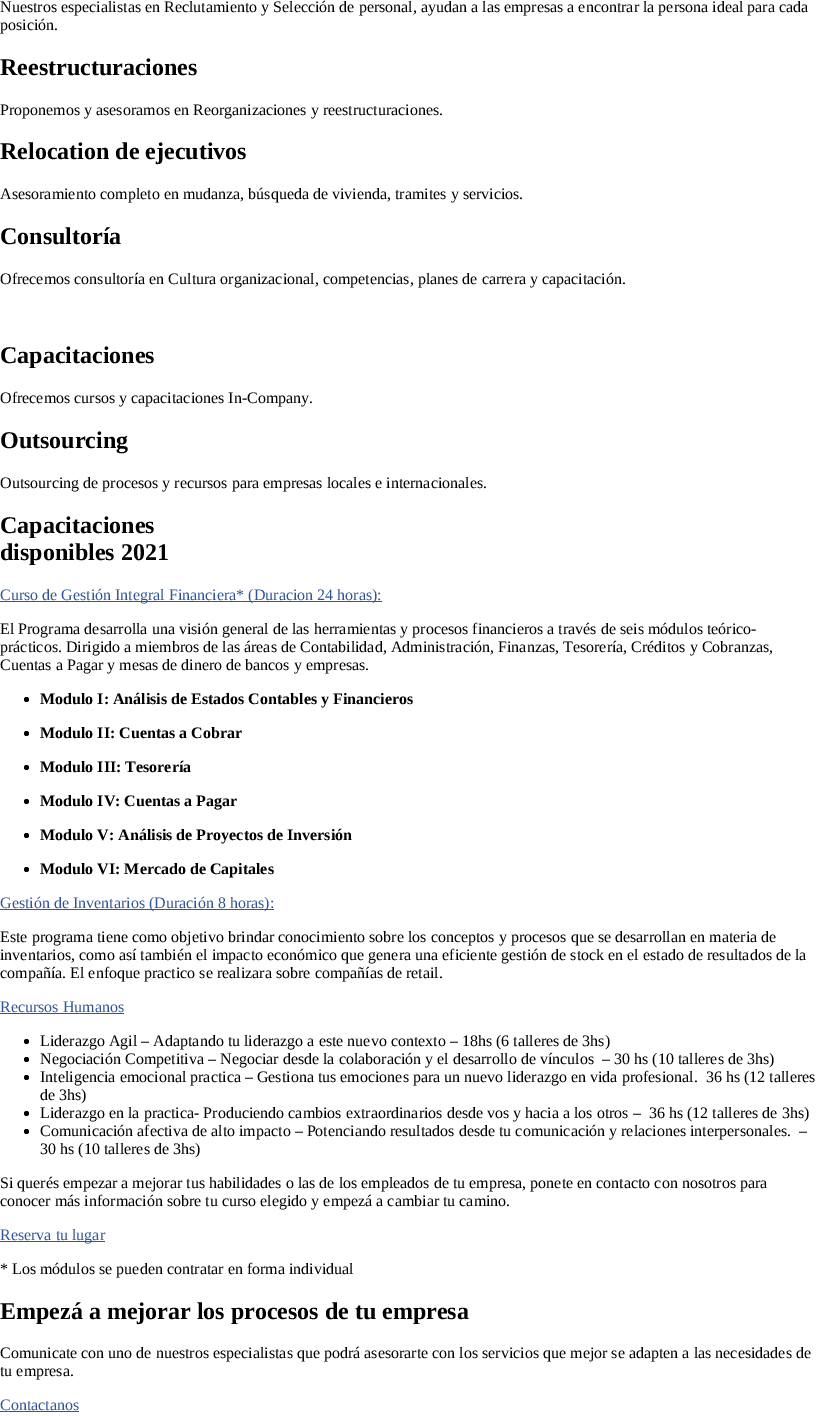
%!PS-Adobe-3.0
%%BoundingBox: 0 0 817 1416
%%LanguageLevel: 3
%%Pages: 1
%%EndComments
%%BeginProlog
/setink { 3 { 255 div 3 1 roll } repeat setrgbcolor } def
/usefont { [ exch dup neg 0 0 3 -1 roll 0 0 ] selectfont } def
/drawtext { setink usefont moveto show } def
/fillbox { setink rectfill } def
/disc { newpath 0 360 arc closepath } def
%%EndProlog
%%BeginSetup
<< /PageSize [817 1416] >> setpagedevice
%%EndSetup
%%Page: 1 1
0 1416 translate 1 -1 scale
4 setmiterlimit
0 0 817 1416 255 255 255 fillbox
(Nuestros especialistas en Reclutamiento y Selección de personal, ayudan a las empresas a encontrar la persona ideal para cada) 0 12 /LiberationSerif-Regular 16 0 0 0 drawtext
(posición.) 0 30 /LiberationSerif-Regular 16 0 0 0 drawtext
(Reestructuraciones) 0 75 /LiberationSerif-Bold 24 0 0 0 drawtext
(Proponemos y asesoramos en Reorganizaciones y reestructuraciones.) 0 115 /LiberationSerif-Regular 16 0 0 0 drawtext
(Relocation de ejecutivos) 0 159 /LiberationSerif-Bold 24 0 0 0 drawtext
(Asesoramiento completo en mudanza, búsqueda de vivienda, tramites y servicios.) 0 199 /LiberationSerif-Regular 16 0 0 0 drawtext
(Consultoría) 0 244 /LiberationSerif-Bold 24 0 0 0 drawtext
(Ofrecemos consultoría en Cultura organizacional, competencias, planes de carrera y capacitación.) 0 284 /LiberationSerif-Regular 16 0 0 0 drawtext
(Capacitaciones) 0 363 /LiberationSerif-Bold 24 0 0 0 drawtext
(Ofrecemos cursos y capacitaciones In-Company.) 0 403 /LiberationSerif-Regular 16 0 0 0 drawtext
(Outsourcing) 0 448 /LiberationSerif-Bold 24 0 0 0 drawtext
(Outsourcing de procesos y recursos para empresas locales e internacionales.) 0 488 /LiberationSerif-Regular 16 0 0 0 drawtext
(Capacitaciones) 0 533 /LiberationSerif-Bold 24 0 0 0 drawtext
(disponibles 2021) 0 560 /LiberationSerif-Bold 24 0 0 0 drawtext
0 601 382 1 48 86 153 fillbox
(Curso de Gestión Integral Financiera* \(Duracion 24 horas\):) 0 600 /LiberationSerif-Regular 16 48 86 153 drawtext
(El Programa desarrolla una visión general de las herramientas y procesos financieros a través de seis módulos teórico-) 0 634 /LiberationSerif-Regular 16 0 0 0 drawtext
(prácticos. Dirigido a miembros de las áreas de Contabilidad, Administración, Finanzas, Tesorería, Créditos y Cobranzas,) 0 652 /LiberationSerif-Regular 16 0 0 0 drawtext
(Cuentas a Pagar y mesas de dinero de bancos y empresas.) 0 670 /LiberationSerif-Regular 16 0 0 0 drawtext
26.5 699.5 2.5 disc fill
(Modulo I: Análisis de Estados Contables y Financieros) 40 704 /LiberationSerif-Bold 16 0 0 0 drawtext
26.5 733.5 2.5 disc fill
(Modulo II: Cuentas a Cobrar) 40 738 /LiberationSerif-Bold 16 0 0 0 drawtext
26.5 767.5 2.5 disc fill
(Modulo III: Tesorería) 40 772 /LiberationSerif-Bold 16 0 0 0 drawtext
26.5 801.5 2.5 disc fill
(Modulo IV: Cuentas a Pagar) 40 806 /LiberationSerif-Bold 16 0 0 0 drawtext
26.5 835.5 2.5 disc fill
(Modulo V: Análisis de Proyectos de Inversión) 40 840 /LiberationSerif-Bold 16 0 0 0 drawtext
26.5 869.5 2.5 disc fill
(Modulo VI: Mercado de Capitales) 40 874 /LiberationSerif-Bold 16 0 0 0 drawtext
0 909 274 1 48 86 153 fillbox
(Gestión de Inventarios \(Duración 8 horas\):) 0 908 /LiberationSerif-Regular 16 48 86 153 drawtext
(Este programa tiene como objetivo brindar conocimiento sobre los conceptos y procesos que se desarrollan en materia de) 0 942 /LiberationSerif-Regular 16 0 0 0 drawtext
(inventarios, como así también el impacto económico que genera una eficiente gestión de stock en el estado de resultados de la) 0 960 /LiberationSerif-Regular 16 0 0 0 drawtext
(compañía. El enfoque practico se realizara sobre compañías de retail.) 0 978 /LiberationSerif-Regular 16 0 0 0 drawtext
(Recursos Humanos) 0 1012 /LiberationSerif-Regular 16 48 86 153 drawtext
0 1013 124 1 48 86 153 fillbox
0 0 0 setink
26.5 1041.5 2.5 disc fill
(Liderazgo Agil – Adaptando tu liderazgo a este nuevo contexto – 18hs \(6 talleres de 3hs\)) 40 1046 /LiberationSerif-Regular 16 0 0 0 drawtext
26.5 1059.5 2.5 disc fill
(Negociación Competitiva – Negociar desde la colaboración y el desarrollo de vínculos  – 30 hs \(10 talleres de 3hs\)) 40 1064 /LiberationSerif-Regular 16 0 0 0 drawtext
26.5 1077.5 2.5 disc fill
(Inteligencia emocional practica – Gestiona tus emociones para un nuevo liderazgo en vida profesional.  36 hs \(12 talleres) 40 1082 /LiberationSerif-Regular 16 0 0 0 drawtext
(de 3hs\)) 40 1100 /LiberationSerif-Regular 16 0 0 0 drawtext
26.5 1113.5 2.5 disc fill
(Liderazgo en la practica- Produciendo cambios extraordinarios desde vos y hacia a los otros –  36 hs \(12 talleres de 3hs\)) 40 1118 /LiberationSerif-Regular 16 0 0 0 drawtext
26.5 1131.5 2.5 disc fill
(Comunicación afectiva de alto impacto – Potenciando resultados desde tu comunicación y relaciones interpersonales.  –) 40 1136 /LiberationSerif-Regular 16 0 0 0 drawtext
(30 hs \(10 talleres de 3hs\)) 40 1154 /LiberationSerif-Regular 16 0 0 0 drawtext
(Si querés empezar a mejorar tus habilidades o las de los empleados de tu empresa, ponete en contacto con nosotros para) 0 1188 /LiberationSerif-Regular 16 0 0 0 drawtext
(conocer más información sobre tu curso elegido y empezá a cambiar tu camino.) 0 1206 /LiberationSerif-Regular 16 0 0 0 drawtext
0 1241 105 1 48 86 153 fillbox
(Reserva tu lugar) 0 1240 /LiberationSerif-Regular 16 48 86 153 drawtext
(* Los módulos se pueden contratar en forma individual) 0 1274 /LiberationSerif-Regular 16 0 0 0 drawtext
(Empezá a mejorar los procesos de tu empresa) 0 1319 /LiberationSerif-Bold 24 0 0 0 drawtext
(Comunicate con uno de nuestros especialistas que podrá asesorarte con los servicios que mejor se adapten a las necesidades de) 0 1358 /LiberationSerif-Regular 16 0 0 0 drawtext
(tu empresa.) 0 1376 /LiberationSerif-Regular 16 0 0 0 drawtext
(Contactanos) 0 1410 /LiberationSerif-Regular 16 48 86 153 drawtext
0 1411 79 1 48 86 153 fillbox
showpage
%%EOF
